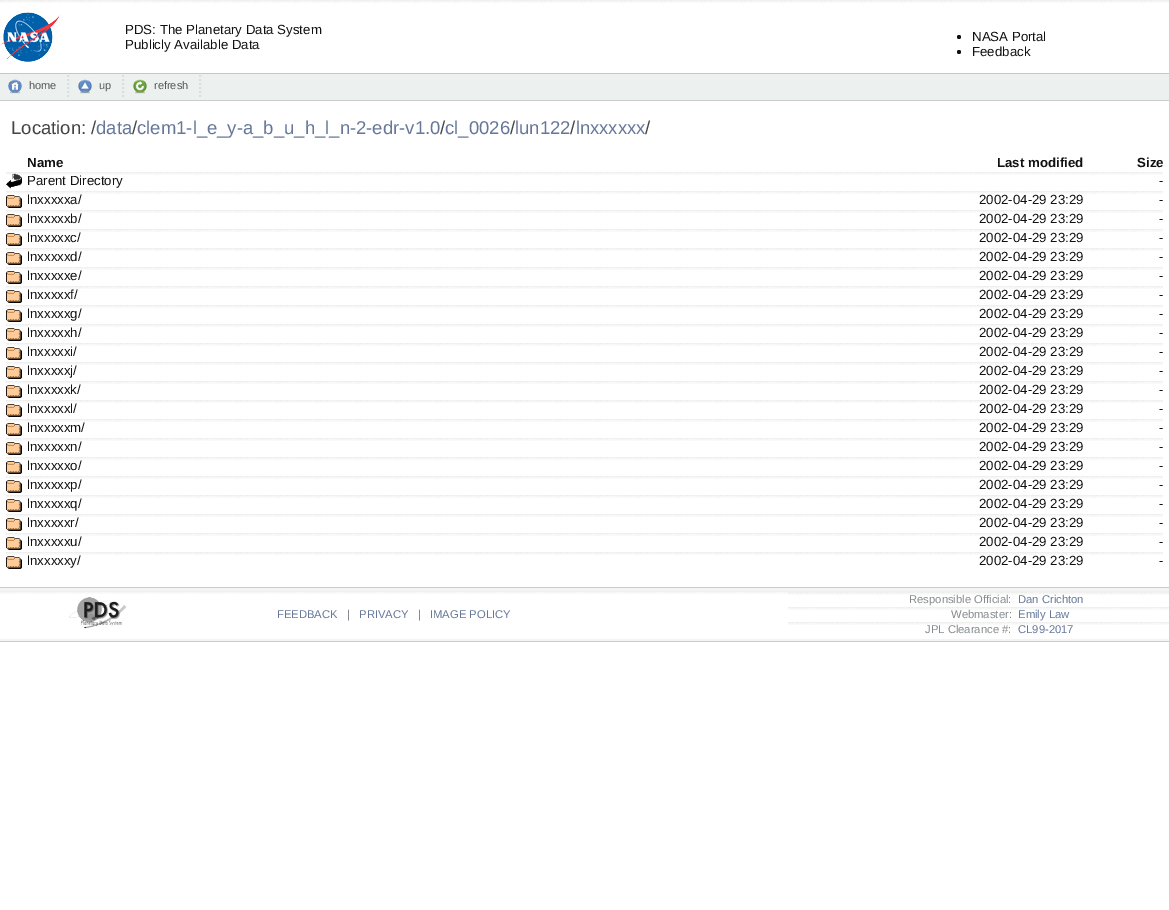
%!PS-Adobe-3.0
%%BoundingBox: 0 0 1169 910
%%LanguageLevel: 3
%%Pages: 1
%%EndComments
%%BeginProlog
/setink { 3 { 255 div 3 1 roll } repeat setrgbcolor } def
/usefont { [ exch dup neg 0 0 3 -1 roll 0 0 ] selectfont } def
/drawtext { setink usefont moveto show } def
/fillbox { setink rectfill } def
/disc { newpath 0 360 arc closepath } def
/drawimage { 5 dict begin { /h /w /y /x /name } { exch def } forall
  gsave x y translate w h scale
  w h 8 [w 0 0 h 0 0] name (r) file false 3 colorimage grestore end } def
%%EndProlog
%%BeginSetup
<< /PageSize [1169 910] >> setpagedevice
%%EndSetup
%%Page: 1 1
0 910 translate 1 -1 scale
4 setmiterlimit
0 0 1169 910 255 255 255 fillbox
(assets/img1.rgb) 0 0 125 3 drawimage
(assets/img2.rgb) 0 12 60 50 drawimage
(assets/img3.rgb) 532 0 400 3 drawimage
(assets/img4.rgb) 125 0 407 3 drawimage
(PDS: The Planetary Data System) 125 34 /LiberationSans-Regular 13.25 17 17 17 drawtext
(Publicly Available Data) 125 49 /LiberationSans-Regular 13.25 17 17 17 drawtext
(assets/img5.rgb) 932 0 237 3 drawimage
0 73 1169 1 204 204 153 fillbox
17 17 17 setink
959 37 2 disc fill
(NASA Portal) 972 41 /LiberationSans-Regular 13.25 17 17 17 drawtext
959 52 2 disc fill
(Feedback) 972 56 /LiberationSans-Regular 13.25 17 17 17 drawtext
0 74 1169 26 236 241 239 fillbox
0 100 1169 1 204 204 204 fillbox
(assets/img6.rgb) 8 79 14 15 drawimage
(home) 29 89 /LiberationSans-Regular 11 85 85 85 drawtext
213 224 224 setink
2 setlinewidth
[2 2] 0 setdash
68 75 moveto 68 98 lineto stroke
(assets/img7.rgb) 78 79 14 15 drawimage
(up) 99 89 /LiberationSans-Regular 11 85 85 85 drawtext
213 224 224 setink
123 75 moveto 123 98 lineto stroke
(assets/img8.rgb) 133 79 14 15 drawimage
(refresh) 154 89 /LiberationSans-Regular 11 85 85 85 drawtext
213 224 224 setink
200 75 moveto 200 98 lineto stroke
(Location: /) 11 134 /LiberationSans-Regular 18.5 68 68 68 drawtext
(data) 96 134 /LiberationSans-Regular 18.5 102 119 153 drawtext
(/) 132 134 /LiberationSans-Regular 18.5 68 68 68 drawtext
(clem1-l_e_y-a_b_u_h_l_n-2-edr-v1.0) 137 134 /LiberationSans-Regular 18.5 102 119 153 drawtext
(/) 440 134 /LiberationSans-Regular 18.5 68 68 68 drawtext
(cl_0026 lun122 lnxxxxxx) 445 134 /LiberationSans-Regular 18.5 102 119 153 drawtext
(/) 510 134 /LiberationSans-Regular 18.5 68 68 68 drawtext
(/) 570 134 /LiberationSans-Regular 18.5 68 68 68 drawtext
(/) 645 134 /LiberationSans-Regular 18.5 68 68 68 drawtext
(Name) 27 167 /LiberationSans-Bold 13.25 17 17 17 drawtext
(Last modified) 997 167 /LiberationSans-Bold 13.25 17 17 17 drawtext
(Size) 1137 167 /LiberationSans-Bold 13.25 17 17 17 drawtext
(assets/img9.rgb) 6 172 21 3 drawimage
(assets/img10.rgb) 6 173 16 16 drawimage
(assets/img11.rgb) 903 172 180 3 drawimage
(assets/img12.rgb) 27 172 876 3 drawimage
(Parent Directory) 27 185 /LiberationSans-Regular 13.25 17 17 17 drawtext
(assets/img13.rgb) 1083 172 80 3 drawimage
(-) 1159 185 /LiberationSans-Regular 13.25 17 17 17 drawtext
(assets/img9.rgb) 6 191 21 3 drawimage
(assets/img14.rgb) 6 195 16 13 drawimage
(assets/img12.rgb) 27 191 876 3 drawimage
(lnxxxxxa/) 27 204 /LiberationSans-Regular 13.25 17 17 17 drawtext
(assets/img11.rgb) 903 191 180 3 drawimage
(2002-04-29 23:29) 979 204 /LiberationSans-Regular 13.25 17 17 17 drawtext
(assets/img13.rgb) 1083 191 80 3 drawimage
(-) 1159 204 /LiberationSans-Regular 13.25 17 17 17 drawtext
(assets/img9.rgb) 6 210 21 3 drawimage
(assets/img14.rgb) 6 214 16 13 drawimage
(assets/img12.rgb) 27 210 876 3 drawimage
(lnxxxxxb/) 27 223 /LiberationSans-Regular 13.25 17 17 17 drawtext
(assets/img11.rgb) 903 210 180 3 drawimage
(2002-04-29 23:29) 979 223 /LiberationSans-Regular 13.25 17 17 17 drawtext
(assets/img13.rgb) 1083 210 80 3 drawimage
(-) 1159 223 /LiberationSans-Regular 13.25 17 17 17 drawtext
(assets/img9.rgb) 6 229 21 3 drawimage
(assets/img14.rgb) 6 233 16 13 drawimage
(assets/img12.rgb) 27 229 876 3 drawimage
(lnxxxxxc/) 27 242 /LiberationSans-Regular 13.25 17 17 17 drawtext
(assets/img11.rgb) 903 229 180 3 drawimage
(2002-04-29 23:29) 979 242 /LiberationSans-Regular 13.25 17 17 17 drawtext
(assets/img13.rgb) 1083 229 80 3 drawimage
(-) 1159 242 /LiberationSans-Regular 13.25 17 17 17 drawtext
(assets/img9.rgb) 6 248 21 3 drawimage
(assets/img14.rgb) 6 252 16 13 drawimage
(assets/img12.rgb) 27 248 876 3 drawimage
(lnxxxxxd/) 27 261 /LiberationSans-Regular 13.25 17 17 17 drawtext
(assets/img11.rgb) 903 248 180 3 drawimage
(2002-04-29 23:29) 979 261 /LiberationSans-Regular 13.25 17 17 17 drawtext
(assets/img13.rgb) 1083 248 80 3 drawimage
(-) 1159 261 /LiberationSans-Regular 13.25 17 17 17 drawtext
(assets/img9.rgb) 6 267 21 3 drawimage
(assets/img14.rgb) 6 271 16 13 drawimage
(assets/img12.rgb) 27 267 876 3 drawimage
(lnxxxxxe/) 27 280 /LiberationSans-Regular 13.25 17 17 17 drawtext
(assets/img11.rgb) 903 267 180 3 drawimage
(2002-04-29 23:29) 979 280 /LiberationSans-Regular 13.25 17 17 17 drawtext
(assets/img13.rgb) 1083 267 80 3 drawimage
(-) 1159 280 /LiberationSans-Regular 13.25 17 17 17 drawtext
(assets/img9.rgb) 6 286 21 3 drawimage
(assets/img14.rgb) 6 290 16 13 drawimage
(assets/img12.rgb) 27 286 876 3 drawimage
(lnxxxxxf/) 27 299 /LiberationSans-Regular 13.25 17 17 17 drawtext
(assets/img11.rgb) 903 286 180 3 drawimage
(2002-04-29 23:29) 979 299 /LiberationSans-Regular 13.25 17 17 17 drawtext
(assets/img13.rgb) 1083 286 80 3 drawimage
(-) 1159 299 /LiberationSans-Regular 13.25 17 17 17 drawtext
(assets/img9.rgb) 6 305 21 3 drawimage
(assets/img14.rgb) 6 309 16 13 drawimage
(assets/img12.rgb) 27 305 876 3 drawimage
(lnxxxxxg/) 27 318 /LiberationSans-Regular 13.25 17 17 17 drawtext
(assets/img11.rgb) 903 305 180 3 drawimage
(2002-04-29 23:29) 979 318 /LiberationSans-Regular 13.25 17 17 17 drawtext
(assets/img13.rgb) 1083 305 80 3 drawimage
(-) 1159 318 /LiberationSans-Regular 13.25 17 17 17 drawtext
(assets/img9.rgb) 6 324 21 3 drawimage
(assets/img14.rgb) 6 328 16 13 drawimage
(assets/img12.rgb) 27 324 876 3 drawimage
(lnxxxxxh/) 27 337 /LiberationSans-Regular 13.25 17 17 17 drawtext
(assets/img11.rgb) 903 324 180 3 drawimage
(2002-04-29 23:29) 979 337 /LiberationSans-Regular 13.25 17 17 17 drawtext
(assets/img13.rgb) 1083 324 80 3 drawimage
(-) 1159 337 /LiberationSans-Regular 13.25 17 17 17 drawtext
(assets/img9.rgb) 6 343 21 3 drawimage
(assets/img14.rgb) 6 347 16 13 drawimage
(assets/img12.rgb) 27 343 876 3 drawimage
(lnxxxxxi/) 27 356 /LiberationSans-Regular 13.25 17 17 17 drawtext
(assets/img11.rgb) 903 343 180 3 drawimage
(2002-04-29 23:29) 979 356 /LiberationSans-Regular 13.25 17 17 17 drawtext
(assets/img13.rgb) 1083 343 80 3 drawimage
(-) 1159 356 /LiberationSans-Regular 13.25 17 17 17 drawtext
(assets/img9.rgb) 6 362 21 3 drawimage
(assets/img14.rgb) 6 366 16 13 drawimage
(assets/img12.rgb) 27 362 876 3 drawimage
(lnxxxxxj/) 27 375 /LiberationSans-Regular 13.25 17 17 17 drawtext
(assets/img11.rgb) 903 362 180 3 drawimage
(2002-04-29 23:29) 979 375 /LiberationSans-Regular 13.25 17 17 17 drawtext
(assets/img13.rgb) 1083 362 80 3 drawimage
(-) 1159 375 /LiberationSans-Regular 13.25 17 17 17 drawtext
(assets/img9.rgb) 6 381 21 3 drawimage
(assets/img14.rgb) 6 385 16 13 drawimage
(assets/img12.rgb) 27 381 876 3 drawimage
(lnxxxxxk/) 27 394 /LiberationSans-Regular 13.25 17 17 17 drawtext
(assets/img11.rgb) 903 381 180 3 drawimage
(2002-04-29 23:29) 979 394 /LiberationSans-Regular 13.25 17 17 17 drawtext
(assets/img13.rgb) 1083 381 80 3 drawimage
(-) 1159 394 /LiberationSans-Regular 13.25 17 17 17 drawtext
(assets/img9.rgb) 6 400 21 3 drawimage
(assets/img14.rgb) 6 404 16 13 drawimage
(assets/img12.rgb) 27 400 876 3 drawimage
(lnxxxxxl/) 27 413 /LiberationSans-Regular 13.25 17 17 17 drawtext
(assets/img11.rgb) 903 400 180 3 drawimage
(2002-04-29 23:29) 979 413 /LiberationSans-Regular 13.25 17 17 17 drawtext
(assets/img13.rgb) 1083 400 80 3 drawimage
(-) 1159 413 /LiberationSans-Regular 13.25 17 17 17 drawtext
(assets/img9.rgb) 6 419 21 3 drawimage
(assets/img14.rgb) 6 423 16 13 drawimage
(assets/img12.rgb) 27 419 876 3 drawimage
(lnxxxxxm/) 27 432 /LiberationSans-Regular 13.25 17 17 17 drawtext
(assets/img11.rgb) 903 419 180 3 drawimage
(2002-04-29 23:29) 979 432 /LiberationSans-Regular 13.25 17 17 17 drawtext
(assets/img13.rgb) 1083 419 80 3 drawimage
(-) 1159 432 /LiberationSans-Regular 13.25 17 17 17 drawtext
(assets/img9.rgb) 6 438 21 3 drawimage
(assets/img14.rgb) 6 442 16 13 drawimage
(assets/img12.rgb) 27 438 876 3 drawimage
(lnxxxxxn/) 27 451 /LiberationSans-Regular 13.25 17 17 17 drawtext
(assets/img11.rgb) 903 438 180 3 drawimage
(2002-04-29 23:29) 979 451 /LiberationSans-Regular 13.25 17 17 17 drawtext
(assets/img13.rgb) 1083 438 80 3 drawimage
(-) 1159 451 /LiberationSans-Regular 13.25 17 17 17 drawtext
(assets/img9.rgb) 6 457 21 3 drawimage
(assets/img14.rgb) 6 461 16 13 drawimage
(assets/img12.rgb) 27 457 876 3 drawimage
(lnxxxxxo/) 27 470 /LiberationSans-Regular 13.25 17 17 17 drawtext
(assets/img11.rgb) 903 457 180 3 drawimage
(2002-04-29 23:29) 979 470 /LiberationSans-Regular 13.25 17 17 17 drawtext
(assets/img13.rgb) 1083 457 80 3 drawimage
(-) 1159 470 /LiberationSans-Regular 13.25 17 17 17 drawtext
(assets/img9.rgb) 6 476 21 3 drawimage
(assets/img14.rgb) 6 480 16 13 drawimage
(assets/img12.rgb) 27 476 876 3 drawimage
(lnxxxxxp/) 27 489 /LiberationSans-Regular 13.25 17 17 17 drawtext
(assets/img11.rgb) 903 476 180 3 drawimage
(2002-04-29 23:29) 979 489 /LiberationSans-Regular 13.25 17 17 17 drawtext
(assets/img13.rgb) 1083 476 80 3 drawimage
(-) 1159 489 /LiberationSans-Regular 13.25 17 17 17 drawtext
(assets/img9.rgb) 6 495 21 3 drawimage
(assets/img14.rgb) 6 499 16 13 drawimage
(assets/img12.rgb) 27 495 876 3 drawimage
(lnxxxxxq/) 27 508 /LiberationSans-Regular 13.25 17 17 17 drawtext
(assets/img11.rgb) 903 495 180 3 drawimage
(2002-04-29 23:29) 979 508 /LiberationSans-Regular 13.25 17 17 17 drawtext
(assets/img13.rgb) 1083 495 80 3 drawimage
(-) 1159 508 /LiberationSans-Regular 13.25 17 17 17 drawtext
(assets/img9.rgb) 6 514 21 3 drawimage
(assets/img14.rgb) 6 518 16 13 drawimage
(assets/img12.rgb) 27 514 876 3 drawimage
(lnxxxxxr/) 27 527 /LiberationSans-Regular 13.25 17 17 17 drawtext
(assets/img11.rgb) 903 514 180 3 drawimage
(2002-04-29 23:29) 979 527 /LiberationSans-Regular 13.25 17 17 17 drawtext
(assets/img13.rgb) 1083 514 80 3 drawimage
(-) 1159 527 /LiberationSans-Regular 13.25 17 17 17 drawtext
(assets/img9.rgb) 6 533 21 3 drawimage
(assets/img14.rgb) 6 537 16 13 drawimage
(assets/img12.rgb) 27 533 876 3 drawimage
(lnxxxxxu/) 27 546 /LiberationSans-Regular 13.25 17 17 17 drawtext
(assets/img11.rgb) 903 533 180 3 drawimage
(2002-04-29 23:29) 979 546 /LiberationSans-Regular 13.25 17 17 17 drawtext
(assets/img13.rgb) 1083 533 80 3 drawimage
(-) 1159 546 /LiberationSans-Regular 13.25 17 17 17 drawtext
(assets/img9.rgb) 6 552 21 3 drawimage
(assets/img14.rgb) 6 556 16 13 drawimage
(assets/img12.rgb) 27 552 876 3 drawimage
(lnxxxxxy/) 27 565 /LiberationSans-Regular 13.25 17 17 17 drawtext
(assets/img11.rgb) 903 552 180 3 drawimage
(2002-04-29 23:29) 979 565 /LiberationSans-Regular 13.25 17 17 17 drawtext
(assets/img13.rgb) 1083 552 80 3 drawimage
(-) 1159 565 /LiberationSans-Regular 13.25 17 17 17 drawtext
0 588 1169 53 244 244 244 fillbox
0 587 1169 1 204 204 204 fillbox
0 641 1169 1 204 204 204 fillbox
0 594 788 44 255 255 255 fillbox
(assets/img15.rgb) 0 591 127 3 drawimage
(assets/img16.rgb) 69 597 58 32 drawimage
(assets/img17.rgb) 127 591 150 3 drawimage
(assets/img18.rgb) 277 591 511 3 drawimage
(FEEDBACK) 277 618 /LiberationSans-Regular 11.25 102 119 153 drawtext
(|) 347 618 /LiberationSans-Regular 11.25 134 138 141 drawtext
(PRIVACY) 359 618 /LiberationSans-Regular 11.25 102 119 153 drawtext
(|) 418 618 /LiberationSans-Regular 11.25 134 138 141 drawtext
(IMAGE POLICY) 430 618 /LiberationSans-Regular 11.25 102 119 153 drawtext
788 606 381 32 255 255 255 fillbox
(assets/img19.rgb) 788 591 381 1 drawimage
0 638 1169 1 255 255 255 fillbox
788 595 381 11 255 255 255 fillbox
(assets/img20.rgb) 788 592 224 3 drawimage
(Responsible Official:) 909 603 /LiberationSans-Regular 11.25 134 138 141 drawtext
(assets/img21.rgb) 1012 592 157 3 drawimage
(Dan Crichton) 1018 603 /LiberationSans-Regular 11.25 102 119 153 drawtext
(assets/img20.rgb) 788 607 224 3 drawimage
(Webmaster:) 951 618 /LiberationSans-Regular 11.25 134 138 141 drawtext
(assets/img21.rgb) 1012 607 157 3 drawimage
(Emily Law) 1018 618 /LiberationSans-Regular 11.25 102 119 153 drawtext
(assets/img20.rgb) 788 622 224 3 drawimage
(JPL Clearance #:) 925 633 /LiberationSans-Regular 11.25 134 138 141 drawtext
(assets/img21.rgb) 1012 622 157 3 drawimage
(CL99-2017) 1018 633 /LiberationSans-Regular 11.25 102 119 153 drawtext
showpage
%%EOF
